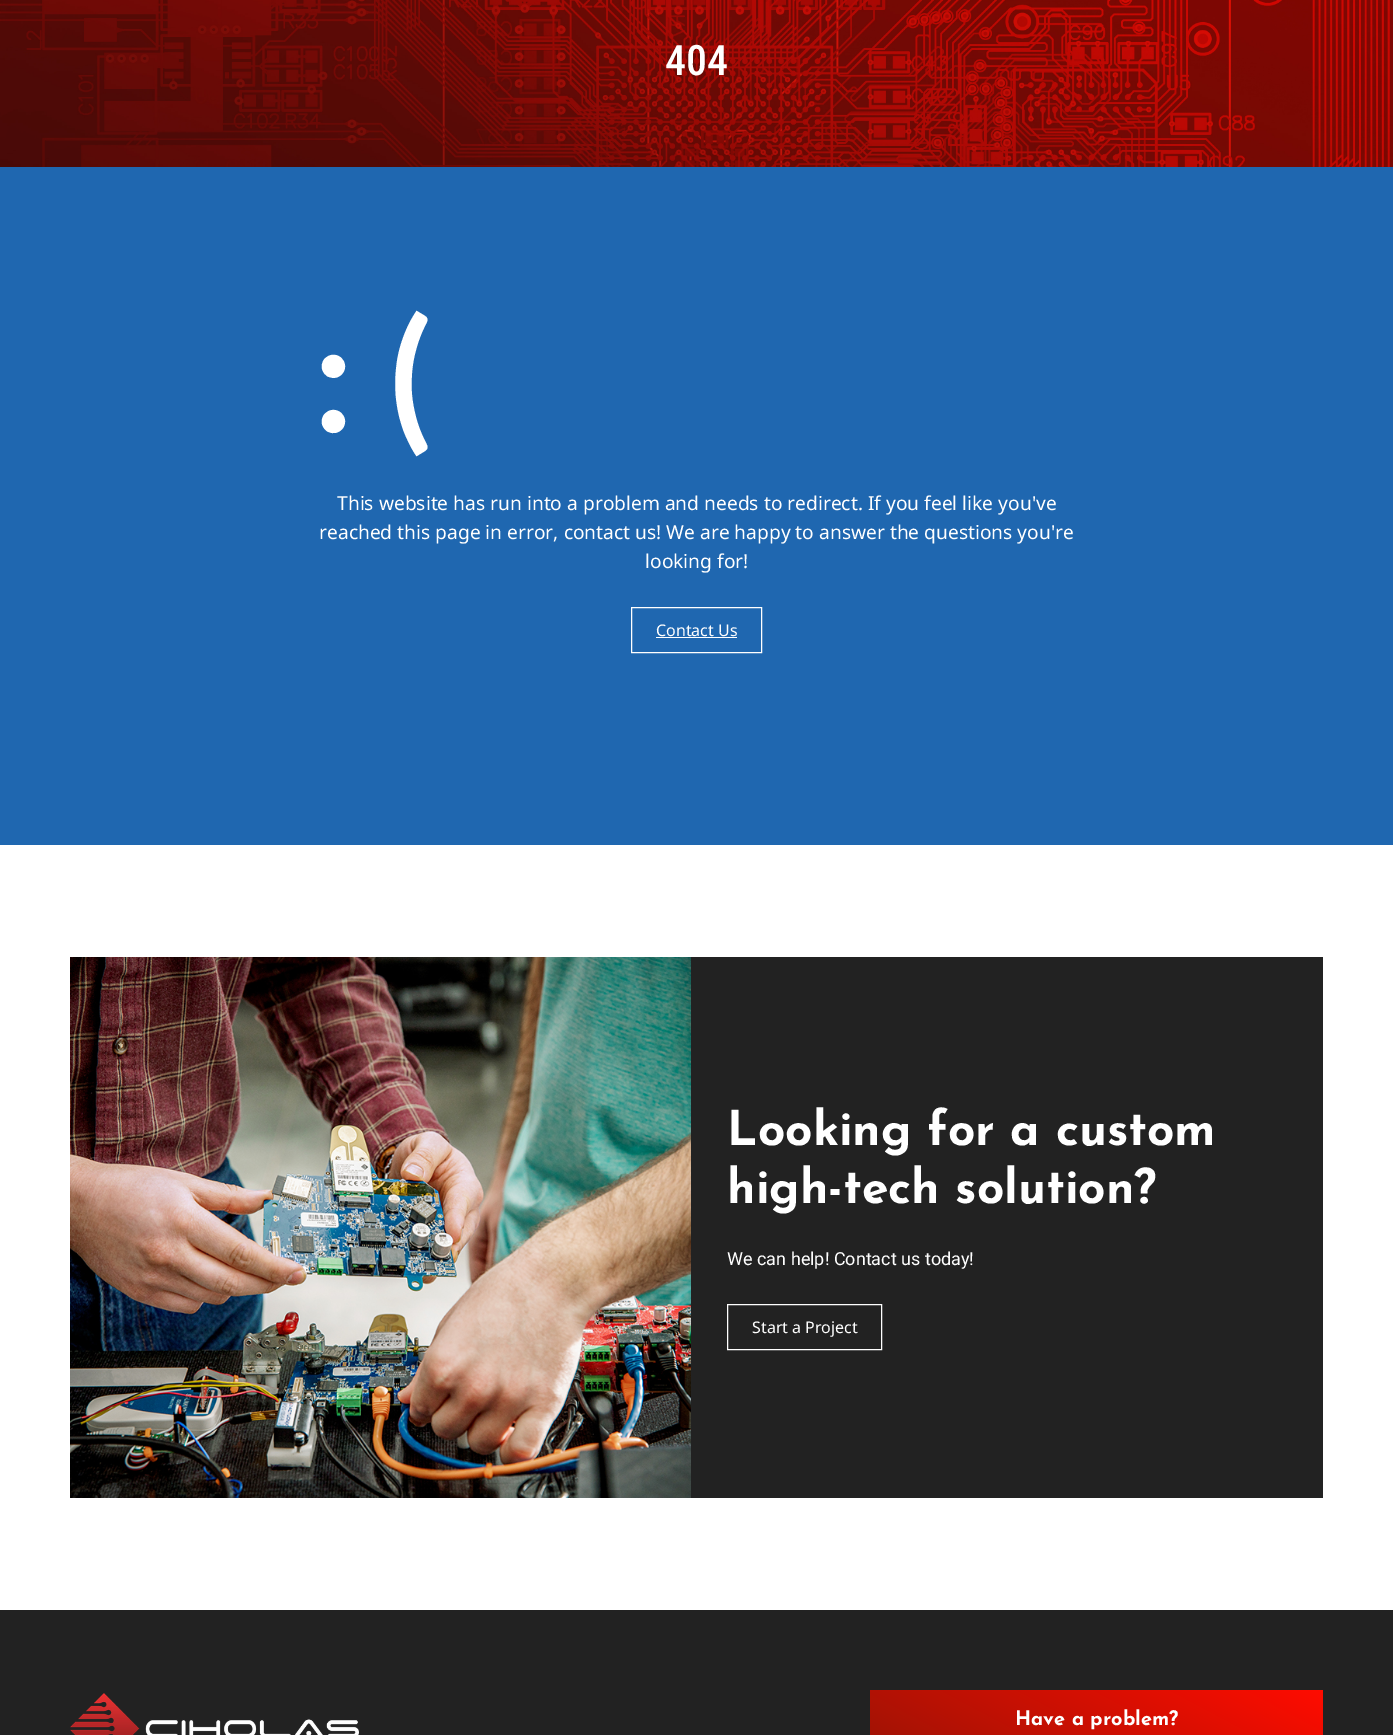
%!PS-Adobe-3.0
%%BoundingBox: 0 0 1393 1735
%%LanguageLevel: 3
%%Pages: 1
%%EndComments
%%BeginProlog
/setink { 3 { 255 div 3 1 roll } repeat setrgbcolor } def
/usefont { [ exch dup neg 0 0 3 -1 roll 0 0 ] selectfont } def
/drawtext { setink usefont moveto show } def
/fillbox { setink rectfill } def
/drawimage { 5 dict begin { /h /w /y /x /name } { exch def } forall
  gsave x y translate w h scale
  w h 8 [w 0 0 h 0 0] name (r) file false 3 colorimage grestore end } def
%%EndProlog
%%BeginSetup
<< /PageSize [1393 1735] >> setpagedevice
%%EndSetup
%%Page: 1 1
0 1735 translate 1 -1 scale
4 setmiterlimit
0 0 1393 1735 255 255 255 fillbox
(assets/img1.rgb) 0 0 1393 167 drawimage
(404) 665 75 /RobotoCondensed-Medium 42 255 255 255 drawtext
0 167 1393 678 31 103 176 fillbox
/Lato-Bold 155 usefont
255 255 255 setink
313 432 moveto 1.5 0 (: \() ashow
(This website has run into a problem and needs to redirect. If you feel like you've) 337 510 /NotoSans-Regular 19.2 255 255 255 drawtext
(reached this page in error, contact us! We are happy to answer the questions you're) 319 539 /NotoSans-Regular 19.2 255 255 255 drawtext
(looking for!) 645 568 /NotoSans-Regular 19.2 255 255 255 drawtext
631.5 607.5 130 45 rectstroke
(Contact Us) 656 636 /NotoSans-Regular 16 255 255 255 drawtext
656 637 81 1 255 255 255 fillbox
691 957 632 541 34 34 34 fillbox
(assets/img2.rgb) 70 957 621 541 drawimage
(Looking for a custom) 727 1145 /JosefinSans-Bold 48 255 255 255 drawtext
(high-tech solution?) 727 1203 /JosefinSans-Bold 48 255 255 255 drawtext
(We can help! Contact us today!) 727 1265 /Roboto-Regular 18 255 255 255 drawtext
727.5 1304.5 154 45 rectstroke
(Start a Project) 752 1333 /NotoSans-Regular 16 255 255 255 drawtext
0 1610 1393 125 34 34 34 fillbox
(assets/img3.rgb) 70 1693 289 42 drawimage
gsave 870 1690 moveto 1323 1690 lineto 1323 1735 lineto 870 1735 lineto closepath clip newpath
<< /ShadingType 2 /ColorSpace /DeviceRGB /Coords [1014 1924 1179 1614] /Extend [true true] /Function << /FunctionType 2 /Domain [0 1] /C0 [0.498 0.086 0.027] /C1 [1 0.047 0] /N 1 >> >> shfill grestore
(Have a problem?) 1015 1725 /JosefinSans-Bold 20 255 255 255 drawtext
showpage
%%EOF
